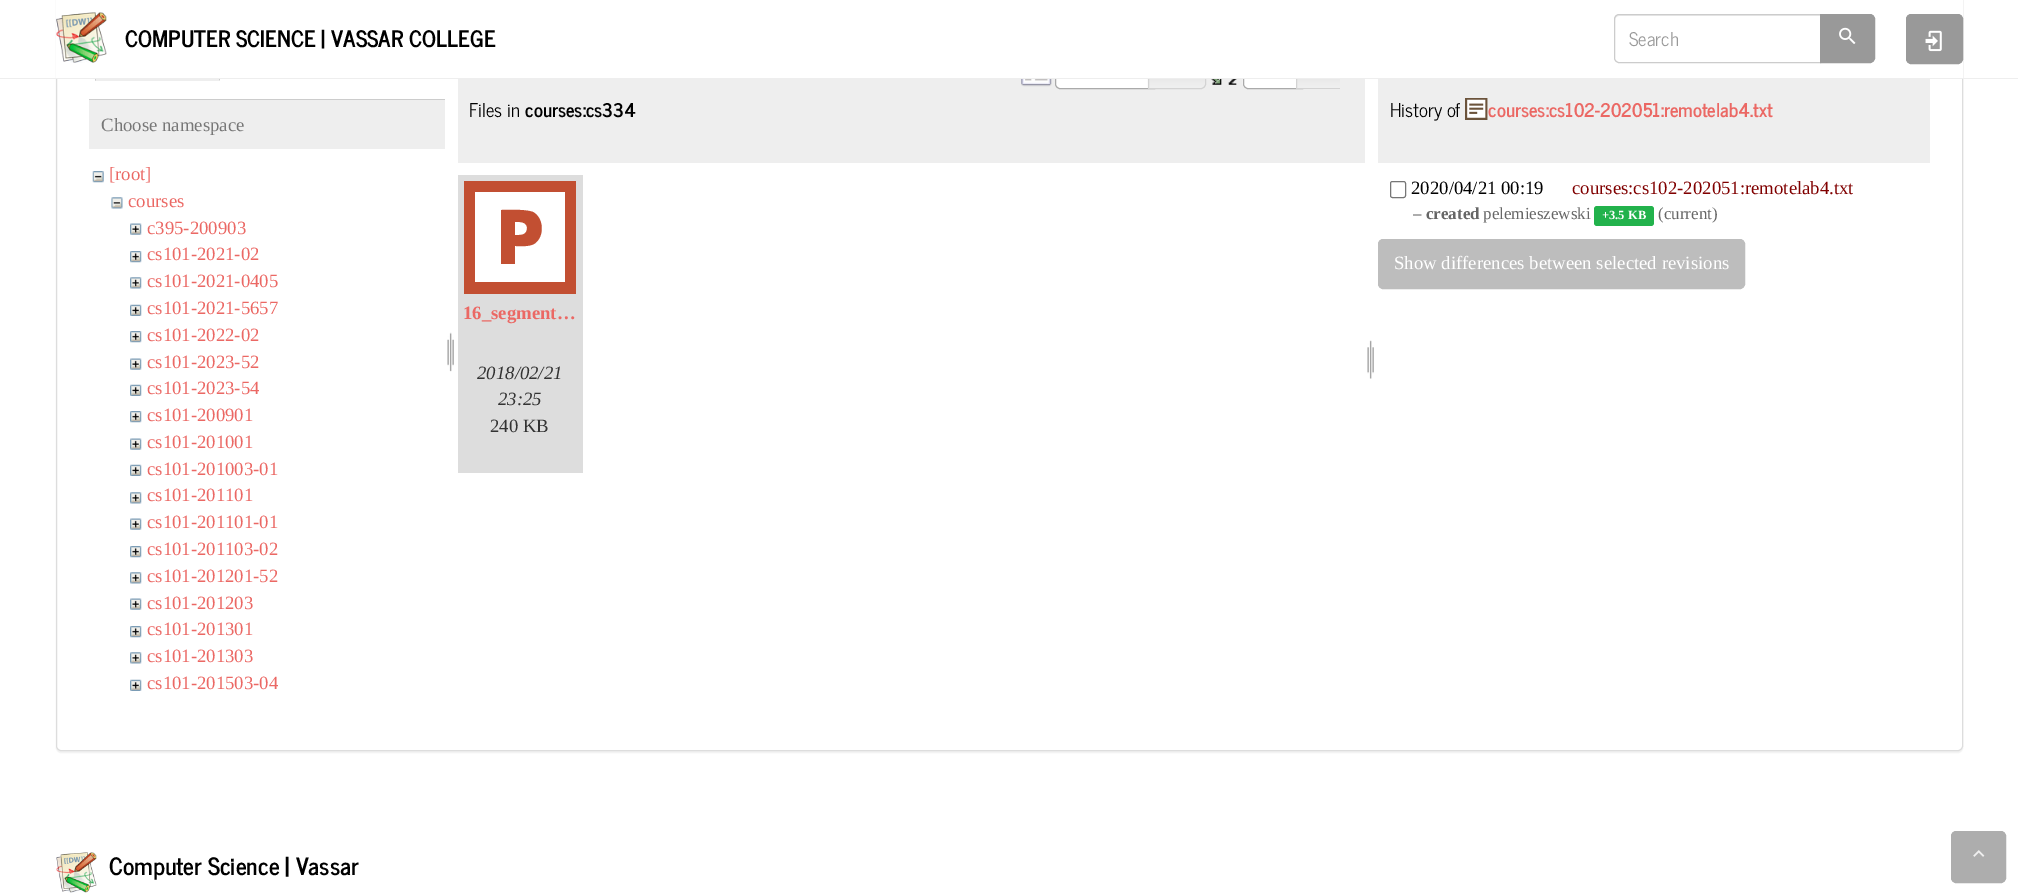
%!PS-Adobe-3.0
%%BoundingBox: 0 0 2018 895
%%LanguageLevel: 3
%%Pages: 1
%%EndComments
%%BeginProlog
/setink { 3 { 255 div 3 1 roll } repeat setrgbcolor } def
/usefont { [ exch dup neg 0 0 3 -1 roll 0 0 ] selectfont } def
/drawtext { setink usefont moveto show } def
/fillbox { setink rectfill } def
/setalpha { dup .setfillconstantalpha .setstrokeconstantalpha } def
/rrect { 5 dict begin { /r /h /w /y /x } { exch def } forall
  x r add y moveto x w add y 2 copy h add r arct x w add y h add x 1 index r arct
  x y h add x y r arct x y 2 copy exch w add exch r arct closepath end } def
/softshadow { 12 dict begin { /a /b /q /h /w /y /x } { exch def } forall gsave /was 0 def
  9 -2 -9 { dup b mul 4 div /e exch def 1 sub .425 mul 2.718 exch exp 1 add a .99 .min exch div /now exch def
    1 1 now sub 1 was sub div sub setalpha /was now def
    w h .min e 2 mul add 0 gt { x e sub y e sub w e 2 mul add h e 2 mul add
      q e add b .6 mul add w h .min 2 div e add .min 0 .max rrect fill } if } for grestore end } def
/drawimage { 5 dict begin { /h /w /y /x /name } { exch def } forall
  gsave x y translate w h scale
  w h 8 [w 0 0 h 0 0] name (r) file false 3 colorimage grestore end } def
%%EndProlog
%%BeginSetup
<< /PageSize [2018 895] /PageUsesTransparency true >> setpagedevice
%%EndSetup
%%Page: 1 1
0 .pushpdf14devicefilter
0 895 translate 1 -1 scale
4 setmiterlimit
0 0 2018 895 255 255 255 fillbox
0 0 0 setink
56 -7 1907 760 5 0.5 0.05 softshadow
255 255 255 setink
56.5 -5.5 1906 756 4.5 rrect gsave fill grestore
221 221 221 setink
stroke
95 79 125 2 238 238 238 fillbox
204 204 204 setink
217 37 moveto 219 38 220 40 220 43 curveto 220 81 lineto 219 80 lineto 219 43 lineto 219 41 218 39 216 37 curveto closepath fill
238 238 238 setink
220 81 moveto 95 81 lineto 96 80 lineto 219 80 lineto closepath fill
204 204 204 setink
95 43 moveto 95 81 lineto 96 80 lineto 96 43 lineto 96 41 97 39 99 37 curveto 98 37 lineto 96 38 95 40 95 43 curveto closepath fill
458 79 907 84 238 238 238 fillbox
255 255 255 setink
1060 59.5 moveto 1154.5 59.5 lineto 1154.5 88.5 lineto 1060 88.5 lineto 1057.5 88.5 1055.5 86.5 1055.5 84 curveto 1055.5 64 lineto 1055.5 61.5 1057.5 59.5 1060 59.5 curveto closepath gsave fill grestore
170 170 170 setink
stroke
(assets/img13.rgb) 1147 79 59 9 drawimage
211 211 211 setink
1148.5 59.5 moveto 1201 59.5 lineto 1203.5 59.5 1205.5 61.5 1205.5 64 curveto 1205.5 84 lineto 1205.5 86.5 1203.5 88.5 1201 88.5 curveto 1148.5 88.5 lineto closepath stroke
255 255 255 setink
1248 59 moveto 1303 59 lineto 1303 89 lineto 1248 89 lineto 1245 89 1243 87 1243 84 curveto 1243 64 lineto 1243 61 1245 59 1248 59 curveto closepath fill
(assets/img15.rgb) 1242 79 5 8 drawimage
170 170 170 setink
1248 59.5 moveto 1302.5 59.5 lineto 1302.5 88.5 lineto 1248 88.5 lineto 1245.5 88.5 1243.5 86.5 1243.5 84 curveto 1243.5 64 lineto 1243.5 61.5 1245.5 59.5 1248 59.5 curveto closepath stroke
(assets/img16.rgb) 1297 79 43 9 drawimage
gsave
1011 59 329 30 rectclip
211 211 211 setink
1296.5 59.5 moveto 1341 59.5 lineto 1343.5 59.5 1345.5 61.5 1345.5 64 curveto 1345.5 84 lineto 1345.5 86.5 1343.5 88.5 1341 88.5 curveto 1296.5 88.5 lineto closepath stroke
grestore
56 0 1907 78 255 255 255 fillbox
0 78 2018 1 238 238 238 fillbox
(assets/img1.rgb) 56 12 51 51 drawimage
(COMPUTER SCIENCE | VASSAR COLLEGE) 125 47 /NewsCycle-Bold 22.5 0 0 0 drawtext
236 236 236 setink
1619 16 moveto 1820 16 lineto 1820 15 lineto 1617 15 lineto 1615 16 1615 18 1615 20 curveto 1615 18 1617 16 1619 16 curveto closepath fill
204 204 204 setink
1619 14.5 moveto 1820.5 14.5 lineto 1820.5 62.5 lineto 1619 62.5 lineto 1616.5 62.5 1614.5 60.5 1614.5 58 curveto 1614.5 19 lineto 1614.5 16.5 1616.5 14.5 1619 14.5 curveto closepath stroke
(Search) 1629 46 /NewsCycle-Regular 18.75 153 153 153 drawtext
1820.5 14.5 moveto 1870 14.5 lineto 1872.5 14.5 1874.5 16.5 1874.5 19 curveto 1874.5 58 lineto 1874.5 60.5 1872.5 62.5 1870 62.5 curveto 1820.5 62.5 lineto closepath gsave fill grestore
stroke
(assets/img2.rgb) 1839 27 17 17 drawimage
1906.5 14.5 56 49 4.5 rrect gsave fill grestore
stroke
(assets/img3.rgb) 1925 30 17 22 drawimage
89 100 356 49 238 238 238 fillbox
89 99 356 1 204 204 204 fillbox
(Choose namespace) 101 131 /LiberationSerif-Regular 18.75 119 119 119 drawtext
(assets/img4.rgb) 92 171 12 12 drawimage
([root]) 109 180 /LiberationSerif-Regular 18.75 235 104 100 drawtext
(assets/img5.rgb) 111 197 12 12 drawimage
(courses) 128 207 /LiberationSerif-Regular 18.75 235 104 100 drawtext
(assets/img6.rgb) 130 223 12 12 drawimage
(c395-200903) 147 234 /LiberationSerif-Regular 18.75 235 104 100 drawtext
(assets/img7.rgb) 130 251 12 12 drawimage
(cs101-2021-02) 147 260 /LiberationSerif-Regular 18.75 235 104 100 drawtext
(assets/img8.rgb) 130 277 12 12 drawimage
(cs101-2021-0405) 147 287 /LiberationSerif-Regular 18.75 235 104 100 drawtext
(assets/img9.rgb) 130 304 12 12 drawimage
(cs101-2021-5657) 147 314 /LiberationSerif-Regular 18.75 235 104 100 drawtext
(assets/img7.rgb) 130 331 12 12 drawimage
(cs101-2022-02) 147 341 /LiberationSerif-Regular 18.75 235 104 100 drawtext
(assets/img6.rgb) 130 358 12 12 drawimage
(cs101-2023-52) 147 368 /LiberationSerif-Regular 18.75 235 104 100 drawtext
(assets/img10.rgb) 130 384 12 12 drawimage
(cs101-2023-54) 147 394 /LiberationSerif-Regular 18.75 235 104 100 drawtext
(assets/img7.rgb) 130 411 12 12 drawimage
(cs101-200901) 147 421 /LiberationSerif-Regular 18.75 235 104 100 drawtext
(assets/img6.rgb) 130 438 12 12 drawimage
(cs101-201001) 147 448 /LiberationSerif-Regular 18.75 235 104 100 drawtext
(assets/img10.rgb) 130 464 12 12 drawimage
(cs101-201003-01) 147 475 /LiberationSerif-Regular 18.75 235 104 100 drawtext
(assets/img8.rgb) 130 492 12 12 drawimage
(cs101-201101) 147 501 /LiberationSerif-Regular 18.75 235 104 100 drawtext
(assets/img6.rgb) 130 518 12 12 drawimage
(cs101-201101-01) 147 528 /LiberationSerif-Regular 18.75 235 104 100 drawtext
(assets/img7.rgb) 130 546 12 12 drawimage
(cs101-201103-02) 147 555 /LiberationSerif-Regular 18.75 235 104 100 drawtext
(assets/img8.rgb) 130 572 12 12 drawimage
(cs101-201201-52) 147 582 /LiberationSerif-Regular 18.75 235 104 100 drawtext
(assets/img6.rgb) 130 598 12 12 drawimage
(cs101-201203) 147 609 /LiberationSerif-Regular 18.75 235 104 100 drawtext
(assets/img7.rgb) 130 626 12 12 drawimage
(cs101-201301) 147 635 /LiberationSerif-Regular 18.75 235 104 100 drawtext
(assets/img8.rgb) 130 652 12 12 drawimage
(cs101-201303) 147 662 /LiberationSerif-Regular 18.75 235 104 100 drawtext
(assets/img10.rgb) 130 679 12 12 drawimage
(cs101-201503-04) 147 689 /LiberationSerif-Regular 18.75 235 104 100 drawtext
(assets/img11.rgb) 447 332 7 40 drawimage
(assets/img12.rgb) 1021 79 31 8 drawimage
(assets/img14.rgb) 1211 79 26 6 drawimage
(Files in) 469 117 /NewsCycle-Regular 18.75 0 0 0 drawtext
(courses:cs334) 525 117 /NewsCycle-Bold 18.75 0 0 0 drawtext
458 175 125 298 221 221 221 fillbox
475 192 90 90 255 255 255 fillbox
194 79 50 setink
576 294 moveto 464 294 lineto 464 181 lineto 576 181 lineto closepath 475 282 moveto 565 282 lineto 565 192 lineto 475 192 lineto fill
515 264 moveto 501 264 lineto 501 210 lineto 509 210 525 209 533 212 curveto 544 218 545 237 534 244 curveto 528 247 521 246 515 246 curveto closepath 515 235 moveto 519 235 lineto 524 235 527 233 527 228 curveto 527 224 524 222 519 222 curveto 515 222 lineto closepath fill
(16_segment…) 463 319 /LiberationSerif-Bold 18.75 235 104 100 drawtext
(2018/02/21) 477 379 /LiberationSerif-Italic 18.75 51 51 51 drawtext
(23:25) 498 405 /LiberationSerif-Italic 18.75 51 51 51 drawtext
(240 KB) 490 432 /LiberationSerif-Regular 18.75 51 51 51 drawtext
(assets/img17.rgb) 1367 340 7 39 drawimage
1378 79 552 84 238 238 238 fillbox
(History of) 1390 117 /NewsCycle-Regular 18.75 0 0 0 drawtext
(assets/img18.rgb) 1465 98 23 22 drawimage
(courses:cs102-202051:remotelab4.txt) 1488 117 /NewsCycle-Bold 18.75 235 104 100 drawtext
118 118 118 setink
1390.5 181.5 15 16 2 rrect stroke
(2020/04/21 00:19) 1411 194 /LiberationSerif-Regular 18.75 0 0 0 drawtext
(courses:cs102-202051:remotelab4.txt) 1572 194 /LiberationSerif-Regular 18.75 128 0 0 drawtext
(– created) 1413 219 /LiberationSerif-Bold 17 102 102 102 drawtext
(pelemieszewski) 1483 219 /LiberationSerif-Regular 17 102 102 102 drawtext
34 178 76 setink
1594 206 60 20 3 rrect fill
(+3.5 KB) 1602 219 /LiberationSerif-Bold 12.5 255 255 255 drawtext
(\(current\)) 1658 219 /LiberationSerif-Regular 17 102 102 102 drawtext
189 189 189 setink
1378.5 239.5 366 49 4.5 rrect gsave fill grestore
stroke
(Show differences between selected revisions) 1394 269 /LiberationSerif-Regular 18.75 255 255 255 drawtext
(assets/img19.rgb) 56 852 41 41 drawimage
(Computer Science | Vassar) 109 875 /NewsCycle-Bold 23.75 0 0 0 drawtext
173 173 173 setink
1951.5 831.5 54 51 4.5 rrect gsave fill grestore
stroke
(assets/img20.rgb) 1973 850 12 7 drawimage
.poppdf14devicefilter showpage
%%EOF
